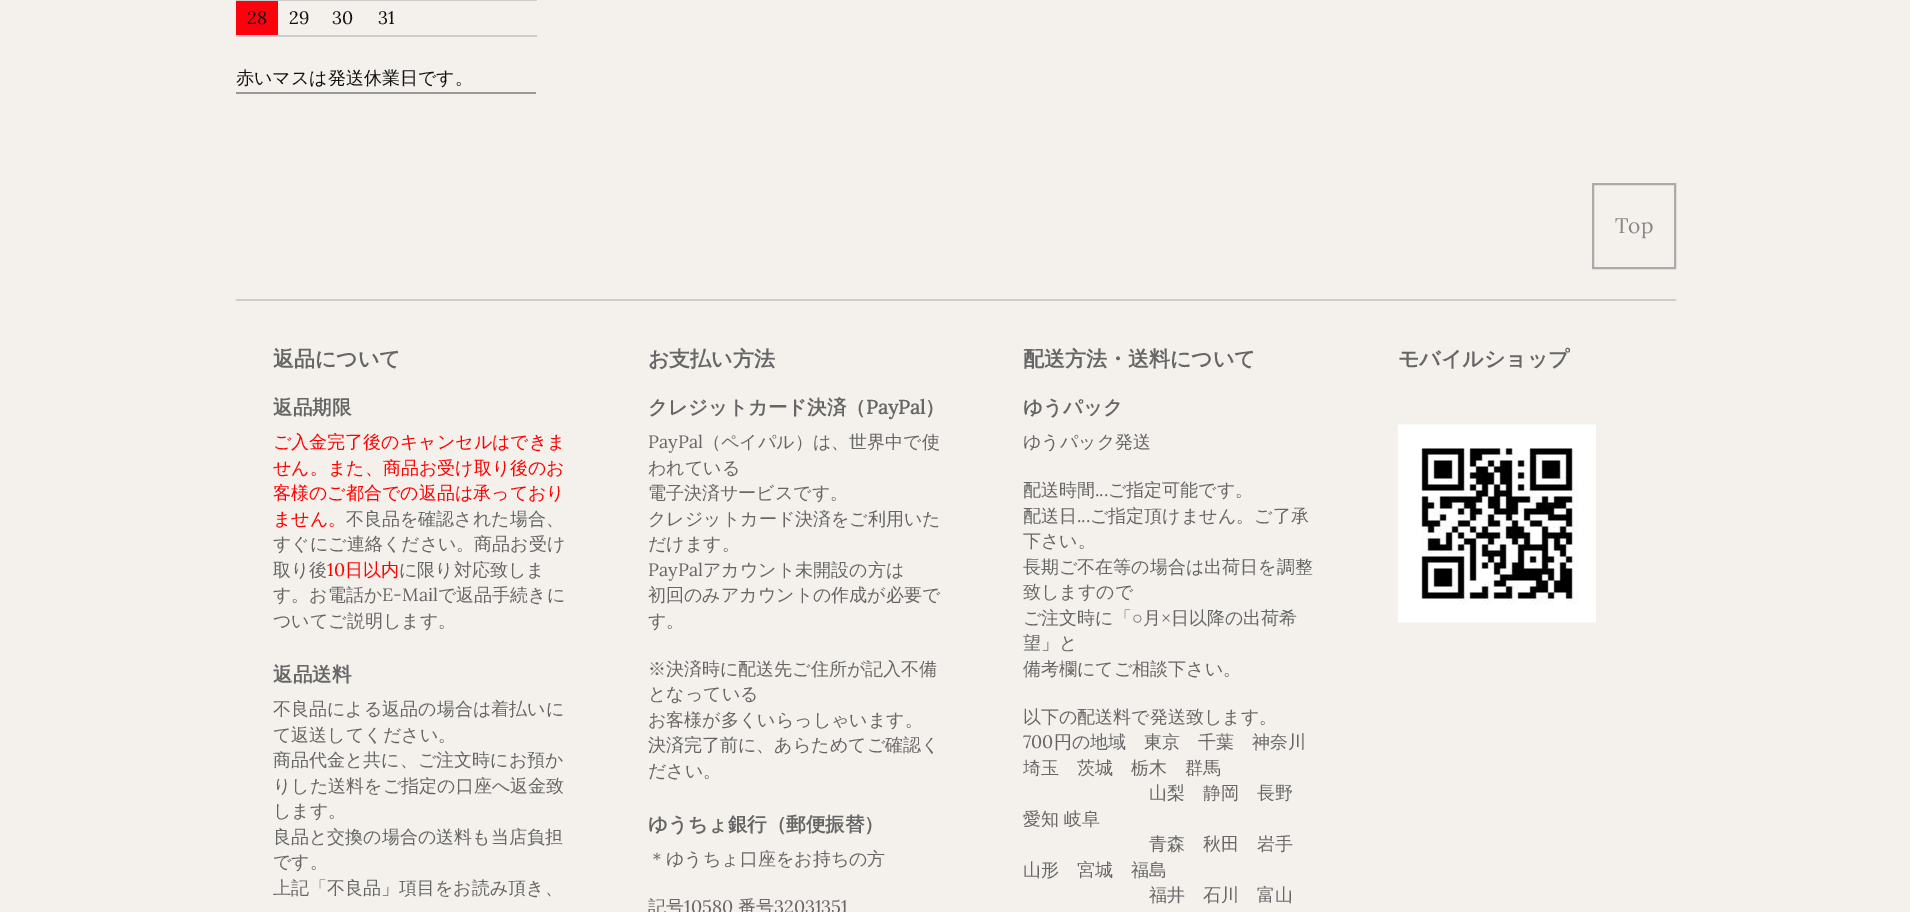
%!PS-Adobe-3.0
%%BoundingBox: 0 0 1910 912
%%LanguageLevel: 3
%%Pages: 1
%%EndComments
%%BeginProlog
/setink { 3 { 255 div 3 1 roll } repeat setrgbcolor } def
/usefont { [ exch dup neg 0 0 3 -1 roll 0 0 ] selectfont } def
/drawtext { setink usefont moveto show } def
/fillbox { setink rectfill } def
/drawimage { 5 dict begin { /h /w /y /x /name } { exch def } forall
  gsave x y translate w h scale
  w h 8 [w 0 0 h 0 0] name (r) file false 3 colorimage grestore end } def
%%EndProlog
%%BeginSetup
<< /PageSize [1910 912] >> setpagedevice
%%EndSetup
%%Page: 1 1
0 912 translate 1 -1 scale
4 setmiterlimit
0 0 1910 912 244 241 236 fillbox
236 92 300 2 153 153 153 fillbox
236 0 301 1 204 204 204 fillbox
236 1 42 34 255 0 13 fillbox
(28) 247 24 /Lora-Regular 18 17 17 17 drawtext
(29) 289 24 /Lora-Regular 18 17 17 17 drawtext
(30) 332 24 /Lora-Regular 18 17 17 17 drawtext
(31) 378 24 /Lora-Regular 18 17 17 17 drawtext
236 35 301 2 204 204 204 fillbox
(赤いマスは発送休業日です。) 236 84 /WenQuanYiZenHei-Medium 18 17 17 17 drawtext
170 170 170 setink
2 setlinewidth
1593 184 82 84 rectstroke
(Top) 1615 233 /Lora-Regular 21 136 136 136 drawtext
236 299 1440 2 204 204 204 fillbox
(返品について) 273 366 /WenQuanYiZenHei-Bold 21 102 102 102 drawtext
(返品期限) 273 414 /WenQuanYiZenHei-Bold 19.5 102 102 102 drawtext
(ご入金完了後のキャンセルはできま) 273 448 /WenQuanYiZenHei-Medium 18 255 0 0 drawtext
(せん。また、商品お受け取り後のお) 273 474 /WenQuanYiZenHei-Medium 18 255 0 0 drawtext
(客様のご都合での返品は承っており) 273 499 /WenQuanYiZenHei-Medium 18 255 0 0 drawtext
(ません。) 273 525 /WenQuanYiZenHei-Medium 18 255 0 0 drawtext
(不良品を確認された場合、) 346 525 /WenQuanYiZenHei-Medium 18 102 102 102 drawtext
(すぐにご連絡ください。商品お受け) 273 550 /WenQuanYiZenHei-Medium 18 102 102 102 drawtext
(取り後) 273 576 /WenQuanYiZenHei-Medium 18 102 102 102 drawtext
(10) 327 576 /Lora-Regular 18 255 0 0 drawtext
(日以内) 345 576 /WenQuanYiZenHei-Medium 18 255 0 0 drawtext
(に限り対応致しま) 399 576 /WenQuanYiZenHei-Medium 18 102 102 102 drawtext
(す。お電話か) 273 601 /WenQuanYiZenHei-Medium 18 102 102 102 drawtext
(E-Mail) 382 601 /Lora-Regular 18 102 102 102 drawtext
(で返品手続きに) 438 601 /WenQuanYiZenHei-Medium 18 102 102 102 drawtext
(ついてご説明します。) 273 627 /WenQuanYiZenHei-Medium 18 102 102 102 drawtext
(返品送料) 273 681 /WenQuanYiZenHei-Bold 19.5 102 102 102 drawtext
(不良品による返品の場合は着払いに) 273 715 /WenQuanYiZenHei-Medium 18 102 102 102 drawtext
(て返送してください。) 273 741 /WenQuanYiZenHei-Medium 18 102 102 102 drawtext
(商品代金と共に、ご注文時にお預か) 273 766 /WenQuanYiZenHei-Medium 18 102 102 102 drawtext
(りした送料をご指定の口座へ返金致) 273 792 /WenQuanYiZenHei-Medium 18 102 102 102 drawtext
(します。) 273 817 /WenQuanYiZenHei-Medium 18 102 102 102 drawtext
(良品と交換の場合の送料も当店負担) 273 843 /WenQuanYiZenHei-Medium 18 102 102 102 drawtext
(です。) 273 868 /WenQuanYiZenHei-Medium 18 102 102 102 drawtext
(上記「不良品」項目をお読み頂き、) 273 894 /WenQuanYiZenHei-Medium 18 102 102 102 drawtext
(お支払い方法) 648 366 /WenQuanYiZenHei-Bold 21 102 102 102 drawtext
(クレジットカード決済（) 648 414 /WenQuanYiZenHei-Bold 19.5 102 102 102 drawtext
(PayPal) 866 414 /Lora-Bold 19.5 102 102 102 drawtext
(）) 925 414 /WenQuanYiZenHei-Bold 19.5 102 102 102 drawtext
(PayPal) 648 448 /Lora-Regular 18 102 102 102 drawtext
(（ペイパル）は、世界中で使) 703 448 /WenQuanYiZenHei-Medium 18 102 102 102 drawtext
(われている) 648 474 /WenQuanYiZenHei-Medium 18 102 102 102 drawtext
(電子決済サービスです。) 648 499 /WenQuanYiZenHei-Medium 18 102 102 102 drawtext
(クレジットカード決済をご利用いた) 648 525 /WenQuanYiZenHei-Medium 18 102 102 102 drawtext
(だけます。) 648 550 /WenQuanYiZenHei-Medium 18 102 102 102 drawtext
(PayPal) 648 576 /Lora-Regular 18 102 102 102 drawtext
(アカウント未開設の方は) 703 576 /WenQuanYiZenHei-Medium 18 102 102 102 drawtext
(初回のみアカウントの作成が必要で) 648 601 /WenQuanYiZenHei-Medium 18 102 102 102 drawtext
(す。) 648 627 /WenQuanYiZenHei-Medium 18 102 102 102 drawtext
(※決済時に配送先ご住所が記入不備) 648 675 /WenQuanYiZenHei-Medium 18 102 102 102 drawtext
(となっている) 648 700 /WenQuanYiZenHei-Medium 18 102 102 102 drawtext
(お客様が多くいらっしゃいます。) 648 726 /WenQuanYiZenHei-Medium 18 102 102 102 drawtext
(決済完了前に、あらためてご確認く) 648 751 /WenQuanYiZenHei-Medium 18 102 102 102 drawtext
(ださい。) 648 777 /WenQuanYiZenHei-Medium 18 102 102 102 drawtext
(ゆうちょ銀行（郵便振替）) 648 831 /WenQuanYiZenHei-Bold 19.5 102 102 102 drawtext
(＊ゆうちょ口座をお持ちの方) 648 865 /WenQuanYiZenHei-Medium 18 102 102 102 drawtext
(記号) 648 913 /WenQuanYiZenHei-Medium 18 102 102 102 drawtext
(10580) 684 913 /Lora-Regular 18 102 102 102 drawtext
(番号) 738 913 /WenQuanYiZenHei-Medium 18 102 102 102 drawtext
(32031351) 774 913 /Lora-Regular 18 102 102 102 drawtext
(配送方法・送料について) 1023 366 /WenQuanYiZenHei-Bold 21 102 102 102 drawtext
(ゆうパック) 1023 414 /WenQuanYiZenHei-Bold 19.5 102 102 102 drawtext
(ゆうパック発送) 1023 448 /WenQuanYiZenHei-Medium 18 102 102 102 drawtext
(配送時間) 1023 496 /WenQuanYiZenHei-Medium 18 102 102 102 drawtext
(...) 1095 496 /Lora-Regular 18 102 102 102 drawtext
(ご指定可能です。) 1108 496 /WenQuanYiZenHei-Medium 18 102 102 102 drawtext
(配送日) 1023 522 /WenQuanYiZenHei-Medium 18 102 102 102 drawtext
(...) 1077 522 /Lora-Regular 18 102 102 102 drawtext
(ご指定頂けません。ご了承) 1090 522 /WenQuanYiZenHei-Medium 18 102 102 102 drawtext
(下さい。) 1023 547 /WenQuanYiZenHei-Medium 18 102 102 102 drawtext
(長期ご不在等の場合は出荷日を調整) 1023 573 /WenQuanYiZenHei-Medium 18 102 102 102 drawtext
(致しますので) 1023 598 /WenQuanYiZenHei-Medium 18 102 102 102 drawtext
(ご注文時に「) 1023 624 /WenQuanYiZenHei-Medium 18 102 102 102 drawtext
(○) 1132 624 /LiberationSerif-Regular 18 102 102 102 drawtext
(月) 1143 624 /WenQuanYiZenHei-Medium 18 102 102 102 drawtext
(×) 1161 624 /LiberationSerif-Regular 18 102 102 102 drawtext
(日以降の出荷希) 1171 624 /WenQuanYiZenHei-Medium 18 102 102 102 drawtext
(望」と) 1023 649 /WenQuanYiZenHei-Medium 18 102 102 102 drawtext
(備考欄にてご相談下さい。) 1023 675 /WenQuanYiZenHei-Medium 18 102 102 102 drawtext
(以下の配送料で発送致します。) 1023 723 /WenQuanYiZenHei-Medium 18 102 102 102 drawtext
(700) 1023 748 /Lora-Regular 18 102 102 102 drawtext
(円の地域　東京　千葉　神奈川) 1054 748 /WenQuanYiZenHei-Medium 18 102 102 102 drawtext
(埼玉　茨城　栃木　群馬) 1023 774 /WenQuanYiZenHei-Medium 18 102 102 102 drawtext
(山梨　静岡　長野) 1149 799 /WenQuanYiZenHei-Medium 18 102 102 102 drawtext
(愛知) 1023 825 /WenQuanYiZenHei-Medium 18 102 102 102 drawtext
(岐阜) 1064 825 /WenQuanYiZenHei-Medium 18 102 102 102 drawtext
(青森　秋田　岩手) 1149 850 /WenQuanYiZenHei-Medium 18 102 102 102 drawtext
(山形　宮城　福島) 1023 876 /WenQuanYiZenHei-Medium 18 102 102 102 drawtext
(福井　石川　富山) 1149 901 /WenQuanYiZenHei-Medium 18 102 102 102 drawtext
(モバイルショップ) 1398 366 /WenQuanYiZenHei-Bold 21 102 102 102 drawtext
(assets/img1.rgb) 1398 424 198 199 drawimage
showpage
%%EOF
